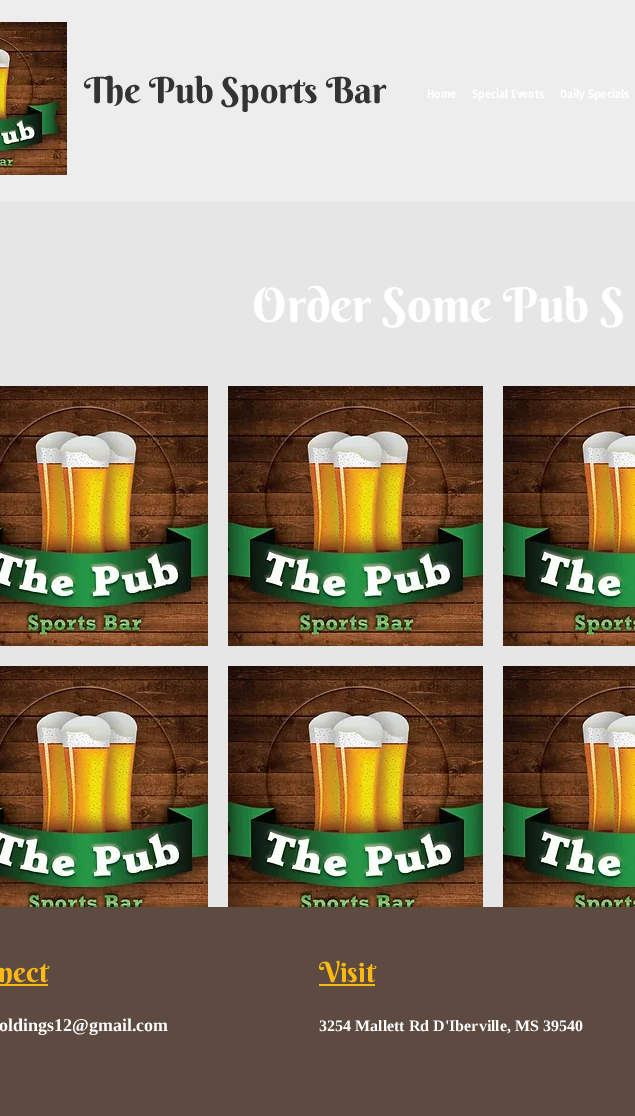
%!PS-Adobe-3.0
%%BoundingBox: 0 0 635 1116
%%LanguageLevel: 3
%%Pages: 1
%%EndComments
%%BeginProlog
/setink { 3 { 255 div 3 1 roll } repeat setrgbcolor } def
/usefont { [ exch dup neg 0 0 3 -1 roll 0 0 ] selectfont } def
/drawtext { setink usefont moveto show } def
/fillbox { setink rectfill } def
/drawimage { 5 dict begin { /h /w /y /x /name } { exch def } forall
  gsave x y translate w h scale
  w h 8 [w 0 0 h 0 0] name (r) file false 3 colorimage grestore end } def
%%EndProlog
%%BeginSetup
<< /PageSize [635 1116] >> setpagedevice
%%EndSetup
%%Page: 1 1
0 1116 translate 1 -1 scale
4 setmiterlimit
0 0 635 1116 230 230 230 fillbox
0 0 635 202 237 237 237 fillbox
(assets/img1.rgb) 0 22 67 153 drawimage
(The Pub Sports Bar) 84 103 /BerkshireSwash-Regular 36 51 51 51 drawtext
(Home) 427 98 /FiraSansCondensed-Bold 12 255 255 255 drawtext
(Special Events) 472 98 /FiraSansCondensed-Bold 12 255 255 255 drawtext
(Daily Specials) 560 98 /FiraSansCondensed-Bold 12 255 255 255 drawtext
(Order Some Pub S) 252 322 /BerkshireSwash-Regular 48 255 255 255 drawtext
(assets/img2.rgb) 0 386 208 260 drawimage
(assets/img3.rgb) 228 386 255 260 drawimage
(assets/img4.rgb) 503 386 132 260 drawimage
(assets/img5.rgb) 0 666 208 241 drawimage
(assets/img6.rgb) 228 666 255 241 drawimage
(assets/img7.rgb) 503 666 132 241 drawimage
0 907 635 209 93 75 65 fillbox
0 984 48 2 253 185 19 fillbox
(nect) -2 982 /BerkshireSwash-Regular 28 253 185 19 drawtext
(oldings12@gmail.com) -1 1031 /LiberationSerif-Bold 18 255 255 255 drawtext
(Visit) 319 982 /BerkshireSwash-Regular 28 253 185 19 drawtext
319 984 56 2 253 185 19 fillbox
(3254 Mallett Rd D'Iberville, MS 39540) 319 1031 /LiberationSerif-Bold 16 255 255 255 drawtext
showpage
%%EOF
